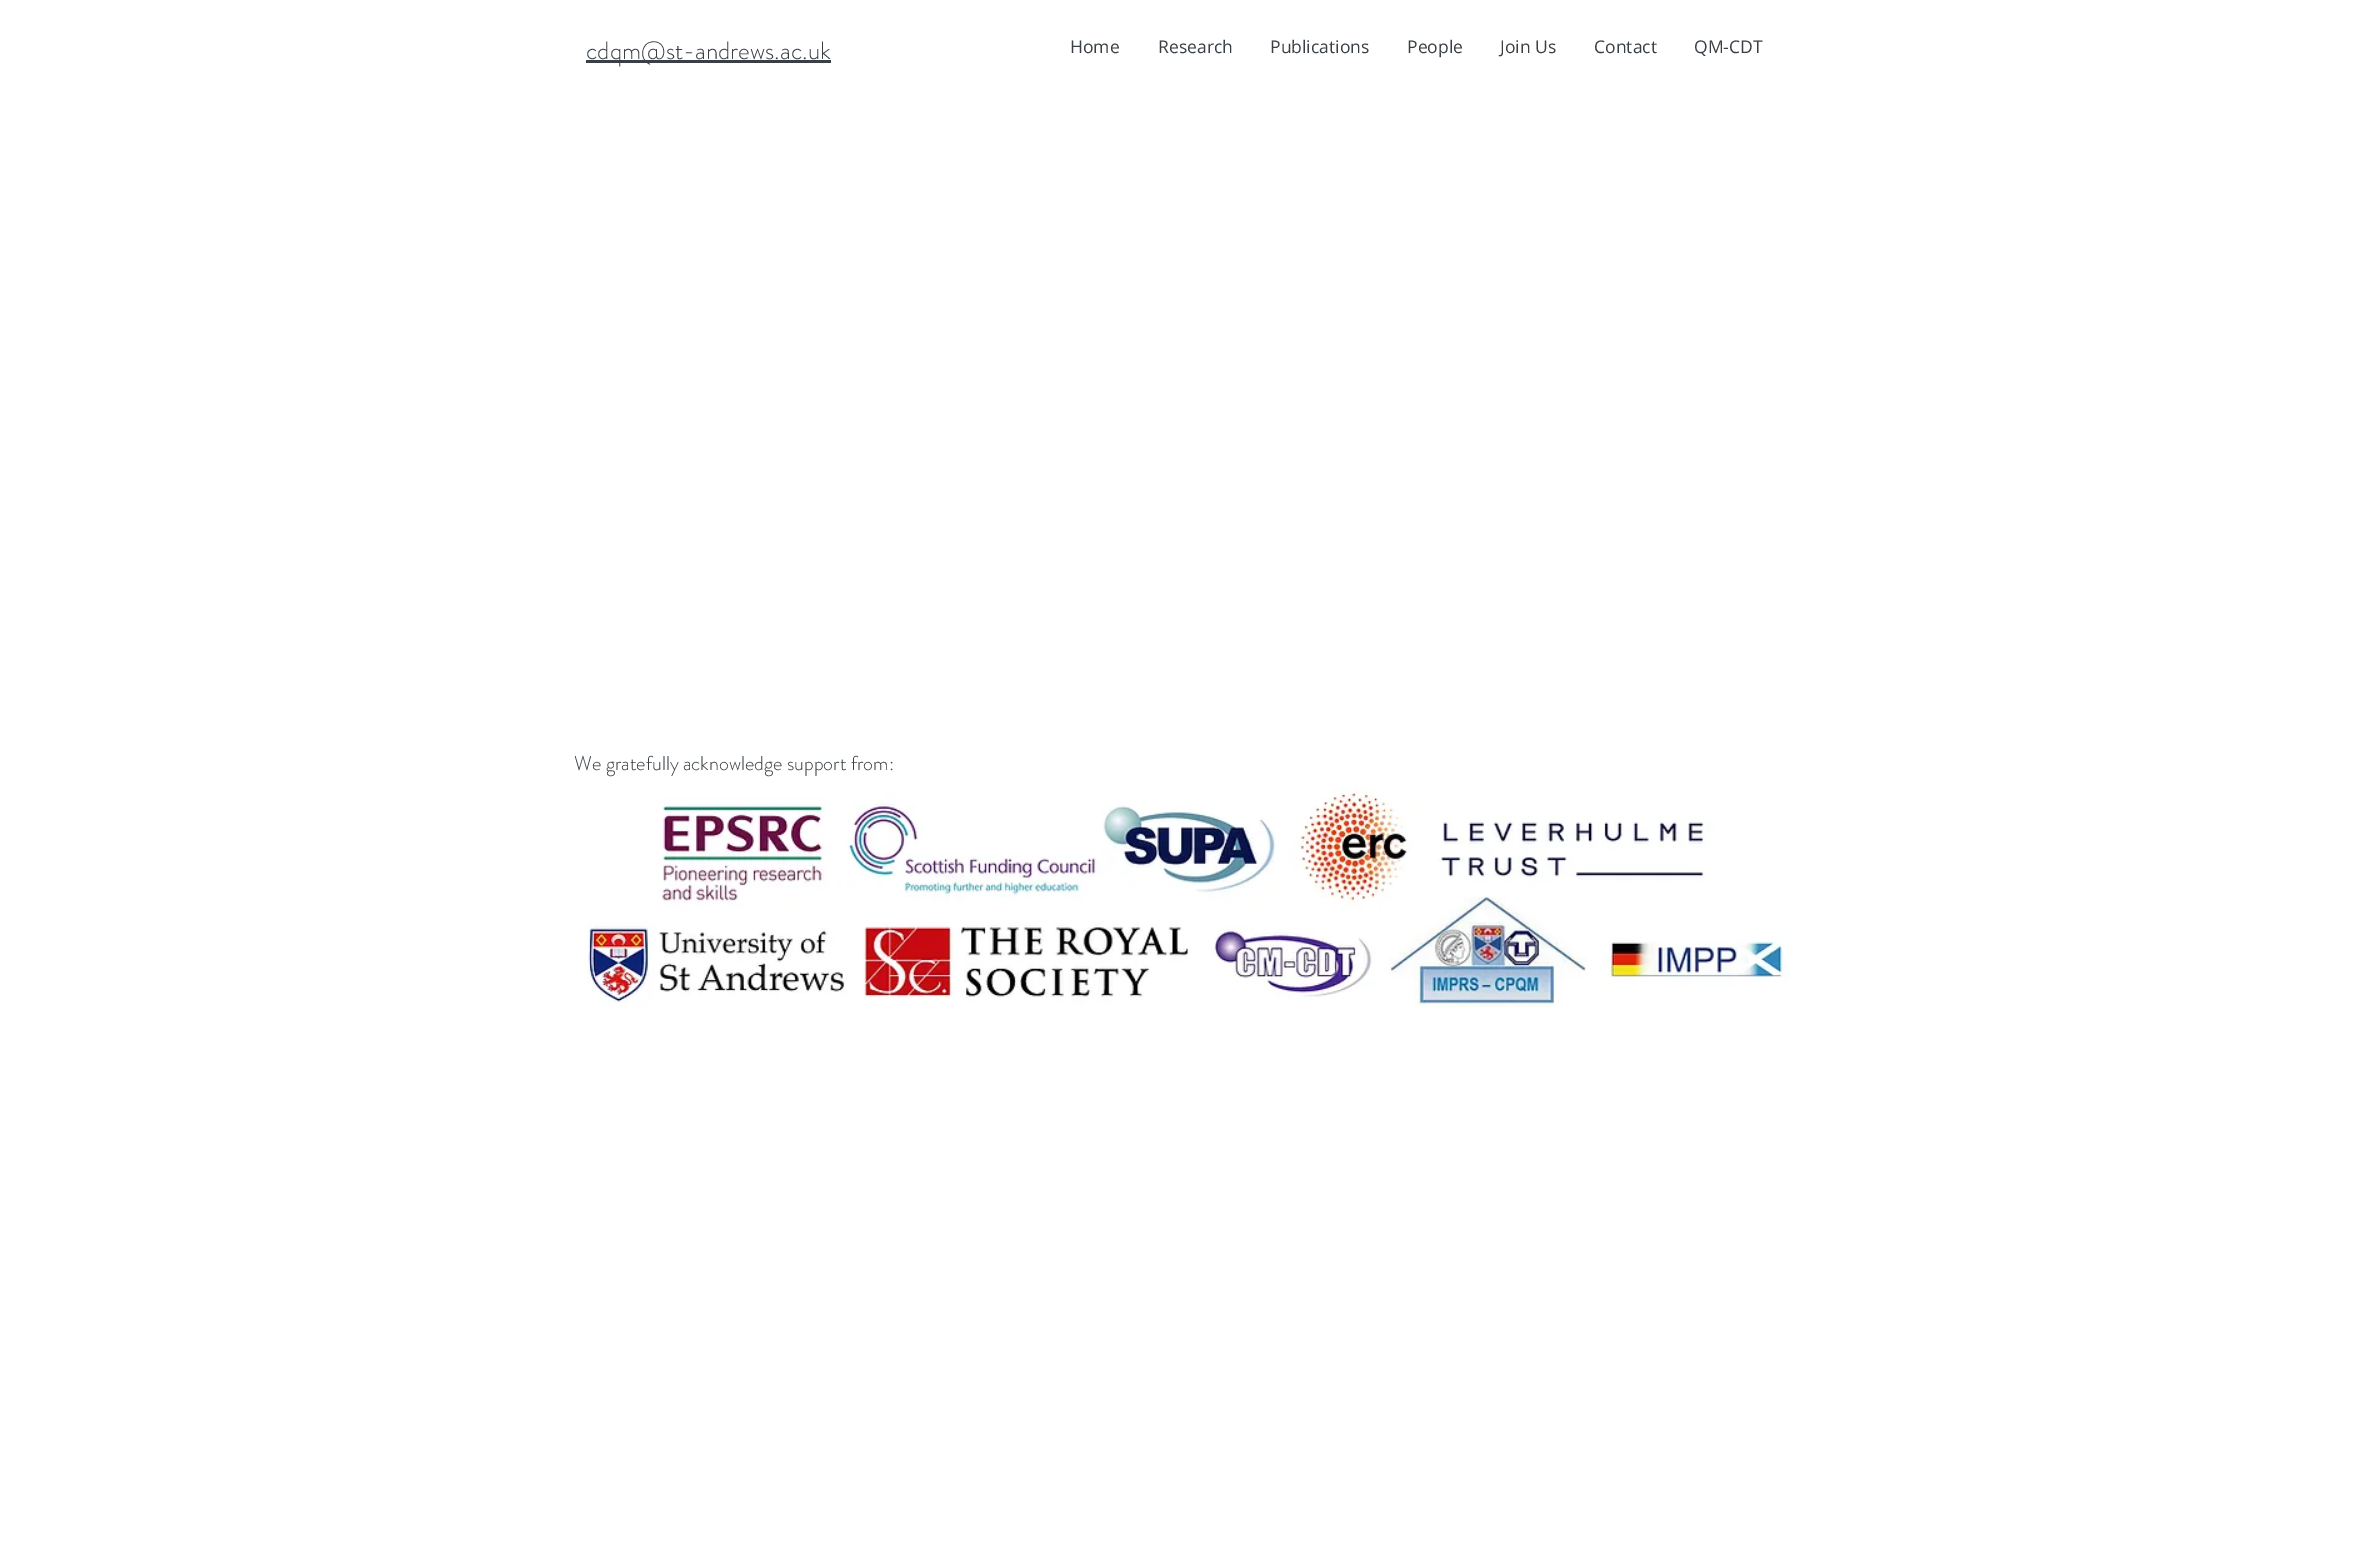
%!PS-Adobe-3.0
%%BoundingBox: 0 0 2365 1553
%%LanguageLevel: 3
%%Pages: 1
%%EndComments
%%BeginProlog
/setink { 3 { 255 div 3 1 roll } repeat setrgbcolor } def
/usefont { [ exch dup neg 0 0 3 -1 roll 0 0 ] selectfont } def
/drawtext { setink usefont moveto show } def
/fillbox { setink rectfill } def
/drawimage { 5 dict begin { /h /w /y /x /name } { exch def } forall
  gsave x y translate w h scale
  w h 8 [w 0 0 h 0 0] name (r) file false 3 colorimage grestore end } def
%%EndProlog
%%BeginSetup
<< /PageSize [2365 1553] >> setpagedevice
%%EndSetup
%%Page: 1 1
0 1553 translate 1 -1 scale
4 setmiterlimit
0 0 2365 1553 255 255 255 fillbox
586 60 245 3 57 63 68 fillbox
(cdqm@st-andrews.ac.uk) 586 59 /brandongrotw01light-Light 25 57 63 68 drawtext
(Home) 1070 53 /OpenSans-Regular 17.5 57 63 68 drawtext
(Research) 1158 53 /OpenSans-Regular 17.5 57 63 68 drawtext
(Publications) 1270 53 /OpenSans-Regular 17.5 57 63 68 drawtext
(People) 1407 53 /OpenSans-Regular 17.5 57 63 68 drawtext
(Join Us) 1500 53 /OpenSans-Regular 17.5 57 63 68 drawtext
(Contact) 1594 53 /OpenSans-Regular 17.5 57 63 68 drawtext
(QM-CDT) 1694 53 /OpenSans-Regular 17.5 57 63 68 drawtext
(We gratefully acknowledge support from:) 574 770 /brandongrotw01light-Light 20 57 63 68 drawtext
(assets/img1.rgb) 584 788 1206 219 drawimage
showpage
%%EOF
